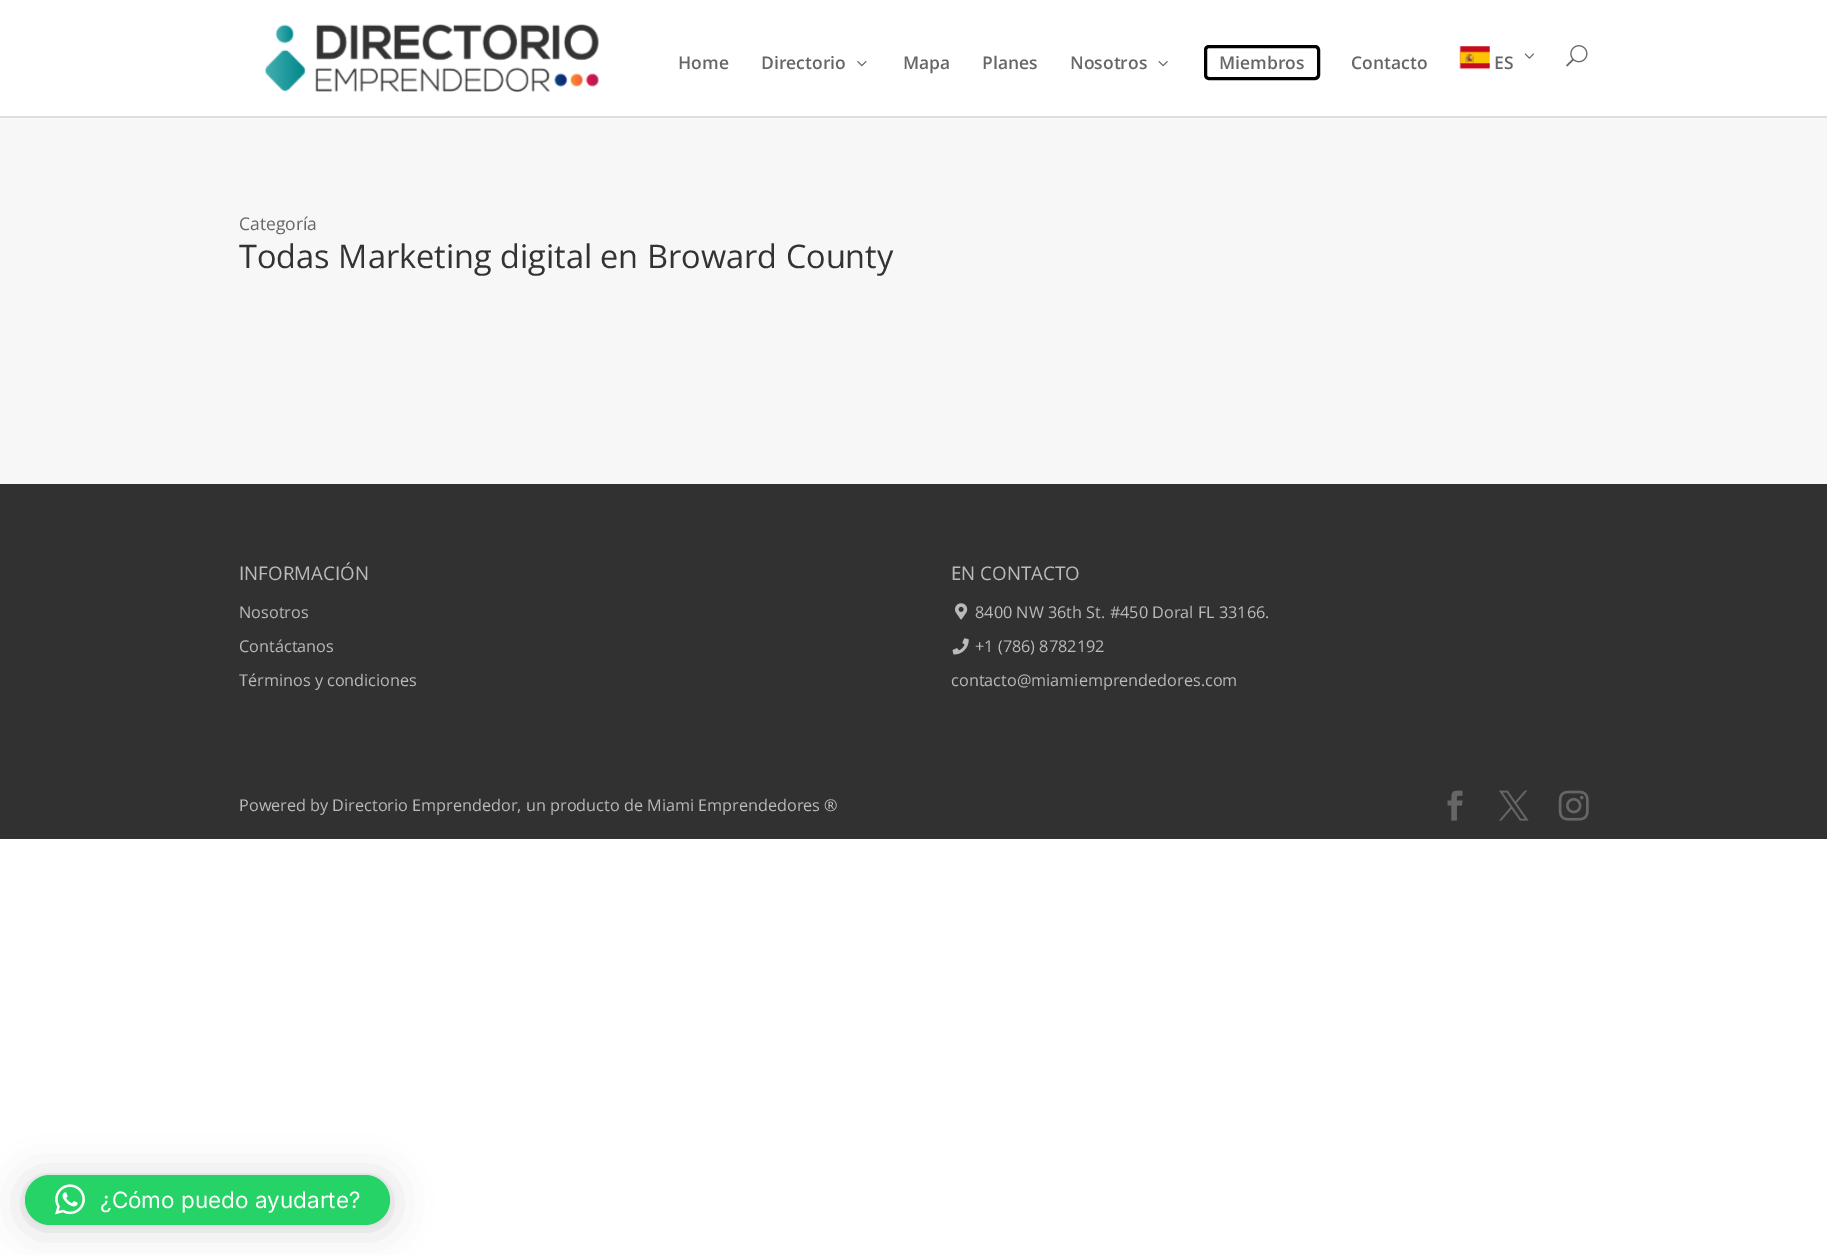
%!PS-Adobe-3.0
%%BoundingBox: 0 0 1827 1255
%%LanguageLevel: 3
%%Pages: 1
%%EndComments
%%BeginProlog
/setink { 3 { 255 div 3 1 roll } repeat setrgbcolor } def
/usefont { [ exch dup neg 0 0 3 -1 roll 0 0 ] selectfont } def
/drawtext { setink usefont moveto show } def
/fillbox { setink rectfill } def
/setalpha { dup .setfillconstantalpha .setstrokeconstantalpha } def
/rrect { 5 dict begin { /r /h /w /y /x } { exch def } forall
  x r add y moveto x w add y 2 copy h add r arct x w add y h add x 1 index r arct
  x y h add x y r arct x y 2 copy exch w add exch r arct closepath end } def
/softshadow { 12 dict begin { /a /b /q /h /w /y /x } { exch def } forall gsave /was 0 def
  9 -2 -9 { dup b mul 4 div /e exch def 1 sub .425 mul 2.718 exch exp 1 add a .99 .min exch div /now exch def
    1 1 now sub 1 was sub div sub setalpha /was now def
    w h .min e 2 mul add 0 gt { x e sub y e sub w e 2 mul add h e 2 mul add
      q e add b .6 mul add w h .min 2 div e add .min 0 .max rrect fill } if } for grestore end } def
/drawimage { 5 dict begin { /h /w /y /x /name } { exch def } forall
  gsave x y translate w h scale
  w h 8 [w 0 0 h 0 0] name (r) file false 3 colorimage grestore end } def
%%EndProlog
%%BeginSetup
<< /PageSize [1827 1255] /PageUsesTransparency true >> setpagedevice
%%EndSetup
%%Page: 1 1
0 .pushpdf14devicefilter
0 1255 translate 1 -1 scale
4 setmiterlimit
0 0 1827 1255 255 255 255 fillbox
222 222 222 setink
0 116 moveto 0 118 lineto 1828 118 lineto 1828 1 lineto 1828 116 lineto closepath fill
(assets/img1.rgb) 264 24 335 68 drawimage
(Home) 678 69 /OpenSans-SemiBold 17.5 102 102 102 drawtext
(Directorio) 761 69 /OpenSans-SemiBold 17.5 102 102 102 drawtext
(assets/img2.rgb) 857 61 10 6 drawimage
(Mapa) 903 69 /OpenSans-SemiBold 17.5 102 102 102 drawtext
(Planes) 982 69 /OpenSans-SemiBold 17.5 102 102 102 drawtext
(Nosotros) 1070 69 /OpenSans-SemiBold 17.5 102 102 102 drawtext
(assets/img3.rgb) 1158 61 10 6 drawimage
0 0 0 setink
3 setlinewidth
1205.5 46.5 113 32 3.5 rrect stroke
(Miembros) 1219 69 /OpenSans-SemiBold 17.5 102 102 102 drawtext
(Contacto) 1351 69 /OpenSans-SemiBold 17.5 102 102 102 drawtext
(assets/img4.rgb) 1459 46 31 24 drawimage
(ES) 1494 69 /OpenSans-SemiBold 17.5 102 102 102 drawtext
(assets/img5.rgb) 1524 53 10 6 drawimage
(assets/img6.rgb) 1566 45 22 22 drawimage
0 118 1827 366 247 247 247 fillbox
(Categoría) 239 230 /OpenSans-Regular 17.5 102 102 102 drawtext
(Todas Marketing digital en Broward County) 239 268 /OpenSans-Regular 32.5 51 51 51 drawtext
0 484 1827 355 49 49 49 fillbox
(INFORMACIÓN) 239 580 /OpenSans-Regular 18.75 186 186 186 drawtext
(Nosotros) 239 618 /OpenSans-Regular 16.25 186 186 186 drawtext
(Contáctanos) 239 652 /OpenSans-Regular 16.25 186 186 186 drawtext
(Términos y condiciones) 239 686 /OpenSans-Regular 16.25 186 186 186 drawtext
(EN CONTACTO) 951 580 /OpenSans-Regular 18.75 186 186 186 drawtext
(assets/img7.rgb) 955 603 13 17 drawimage
(8400 NW 36th St. #450 Doral FL 33166.) 975 618 /OpenSans-Regular 16.25 186 186 186 drawtext
(assets/img8.rgb) 952 638 17 17 drawimage
(+1 \(786\) 8782192) 975 652 /OpenSans-Regular 16.25 186 186 186 drawtext
(contacto@miamiemprendedores.com) 951 686 /OpenSans-Regular 16.25 186 186 186 drawtext
(Powered by Directorio Emprendedor, un producto de Miami Emprendedores ®) 239 811 /OpenSans-Regular 16.25 186 186 186 drawtext
(assets/img9.rgb) 1447 790 16 31 drawimage
(assets/img10.rgb) 1499 790 30 31 drawimage
(assets/img11.rgb) 1558 790 31 31 drawimage
0 0 0 setink
25 1178 365 50 25 20 0.16 softshadow
25 1176 365 50 25 4 0.06 softshadow
37 211 102 setink
25 1175 365 50 25 rrect fill
(assets/img12.rgb) 55 1184 30 31 drawimage
(¿Cómo puedo ayudarte?) 100 1208 /Inter-Regular 22.5 255 255 255 drawtext
.poppdf14devicefilter showpage
%%EOF
